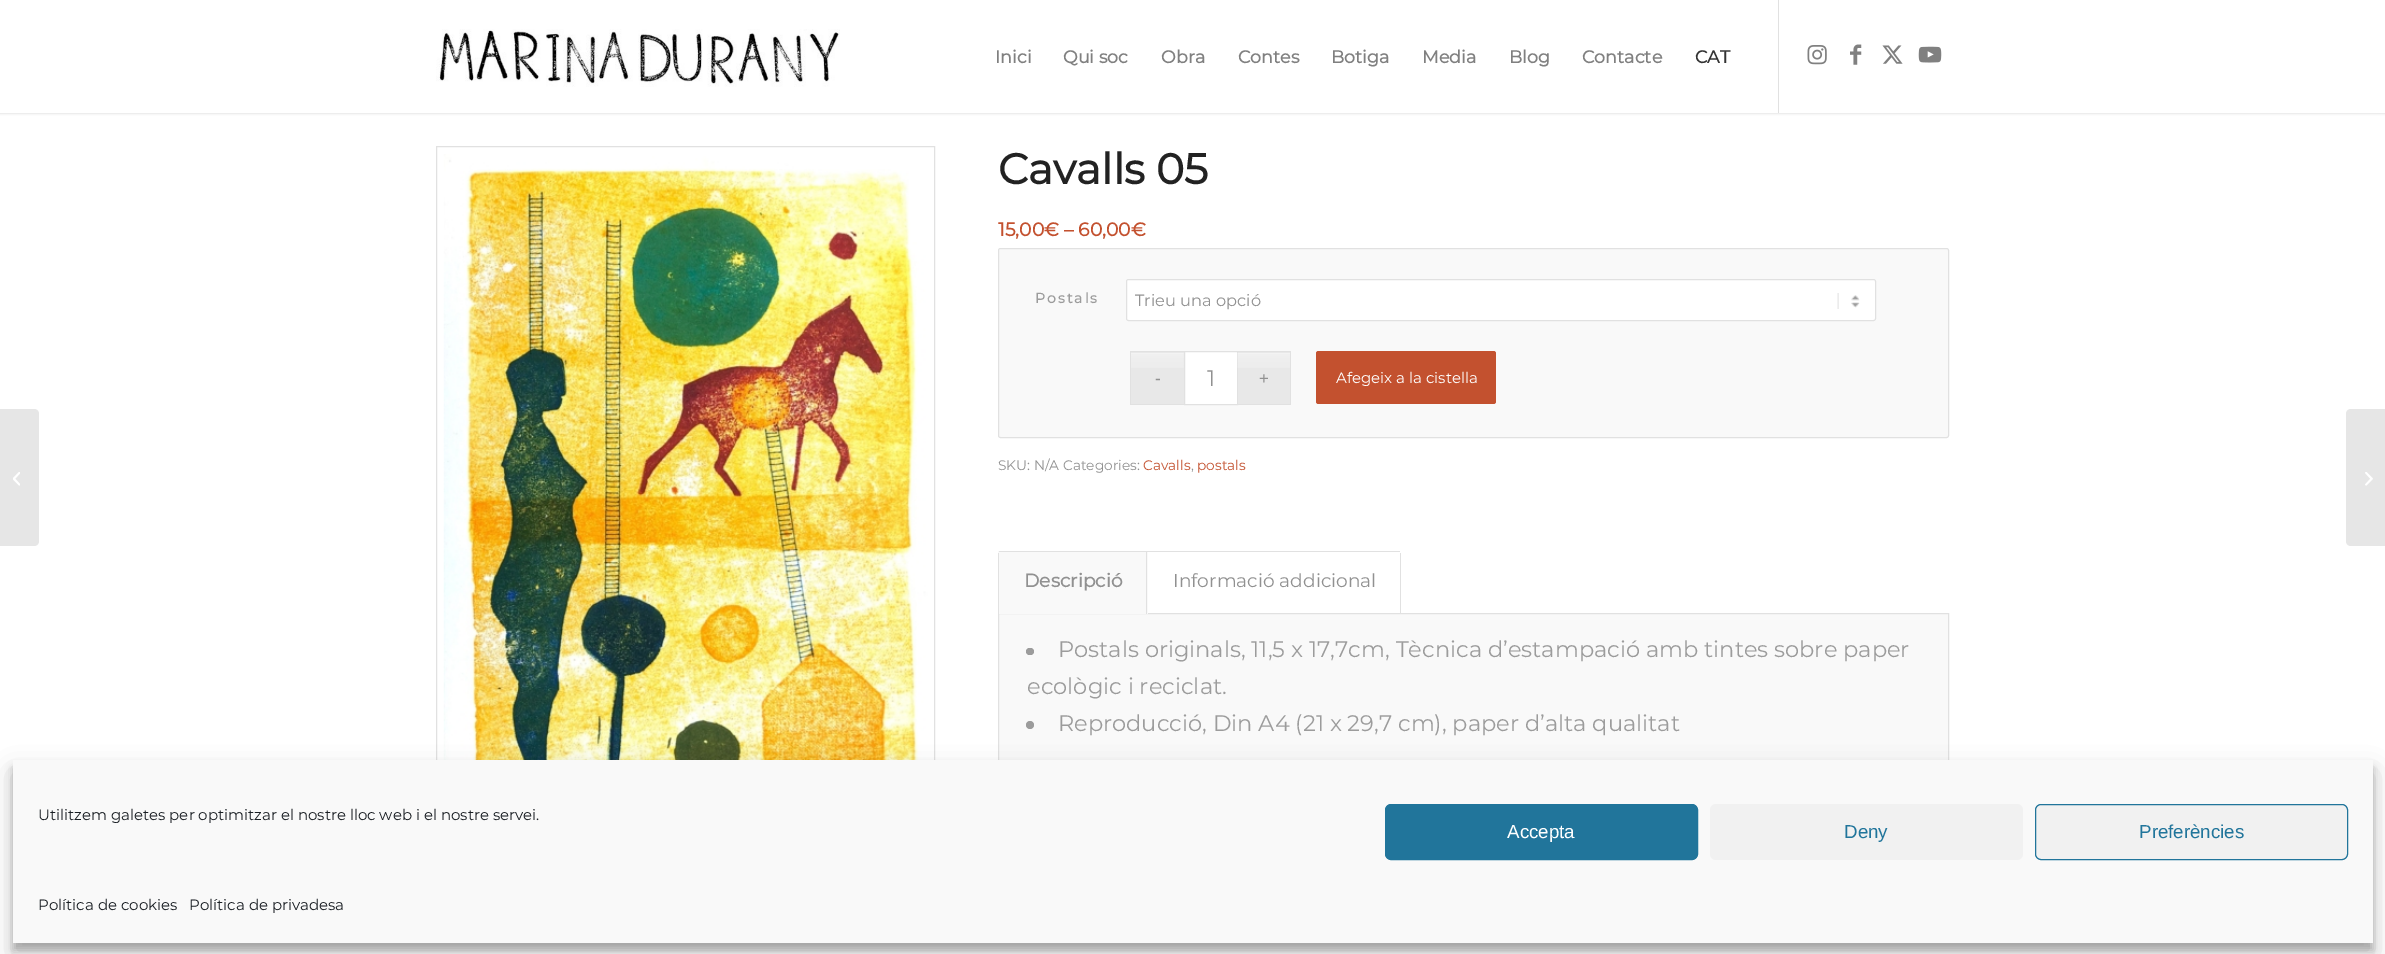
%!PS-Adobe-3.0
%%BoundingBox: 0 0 2385 954
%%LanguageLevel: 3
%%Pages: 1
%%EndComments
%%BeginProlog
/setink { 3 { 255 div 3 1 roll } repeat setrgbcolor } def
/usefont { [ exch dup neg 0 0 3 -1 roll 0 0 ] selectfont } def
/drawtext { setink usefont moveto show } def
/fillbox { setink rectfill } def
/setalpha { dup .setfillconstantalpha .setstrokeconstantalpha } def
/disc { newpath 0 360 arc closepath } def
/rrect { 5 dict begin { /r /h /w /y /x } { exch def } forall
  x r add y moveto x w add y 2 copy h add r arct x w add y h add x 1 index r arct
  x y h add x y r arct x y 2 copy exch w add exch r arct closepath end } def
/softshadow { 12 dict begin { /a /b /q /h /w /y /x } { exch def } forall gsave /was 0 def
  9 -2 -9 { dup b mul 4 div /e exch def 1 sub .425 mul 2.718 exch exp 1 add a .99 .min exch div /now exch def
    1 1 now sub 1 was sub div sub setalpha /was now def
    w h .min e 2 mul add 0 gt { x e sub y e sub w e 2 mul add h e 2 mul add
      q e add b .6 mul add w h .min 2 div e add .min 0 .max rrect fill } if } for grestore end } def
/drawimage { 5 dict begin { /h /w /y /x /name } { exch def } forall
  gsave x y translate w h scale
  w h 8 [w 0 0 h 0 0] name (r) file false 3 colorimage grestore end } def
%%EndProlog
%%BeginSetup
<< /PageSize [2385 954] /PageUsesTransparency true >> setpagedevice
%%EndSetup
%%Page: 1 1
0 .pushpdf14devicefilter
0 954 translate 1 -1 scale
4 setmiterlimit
0 0 2385 954 255 255 255 fillbox
0 0 0 setink
-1 -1 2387 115 0 1 0.1 softshadow
0 0 2385 113 255 255 255 fillbox
(assets/img1.rgb) 436 29 404 58 drawimage
1778 0 1 113 225 225 225 fillbox
(Inici) 995 63 /Montserrat-Bold 17.5 128 128 128 drawtext
(Qui soc) 1063 63 /Montserrat-Bold 17.5 128 128 128 drawtext
(Obra) 1161 63 /Montserrat-Bold 17.5 128 128 128 drawtext
(Contes) 1238 63 /Montserrat-Bold 17.5 128 128 128 drawtext
(Botiga) 1331 63 /Montserrat-Bold 17.5 128 128 128 drawtext
(Media) 1422 63 /Montserrat-Bold 17.5 128 128 128 drawtext
(Blog) 1509 63 /Montserrat-Bold 17.5 128 128 128 drawtext
(Contacte) 1582 63 /Montserrat-Bold 17.5 128 128 128 drawtext
(CAT) 1695 63 /Montserrat-Bold 17.5 51 51 51 drawtext
(assets/img2.rgb) 1807 45 20 20 drawimage
(assets/img3.rgb) 1850 44 12 21 drawimage
(assets/img4.rgb) 1882 45 21 19 drawimage
(assets/img5.rgb) 1918 46 24 17 drawimage
230 230 230 setink
0 409 moveto 34 409 lineto 37 409 39 411 39 414 curveto 39 541 lineto 39 544 37 546 34 546 curveto 0 546 lineto closepath fill
(assets/img6.rgb) 13 472 7 14 drawimage
225 225 225 setink
436.5 146.5 498 758 rectstroke
(assets/img7.rgb) 443 154 485 606 drawimage
(Cavalls 05) 998 184 /Montserrat-Bold 42.5 34 34 34 drawtext
(15,00€ – 60,00€) 998 236 /Montserrat-Bold 18.75 195 81 47 drawtext
249 249 249 setink
998.5 248.5 950 189 2 rrect gsave fill grestore
225 225 225 setink
stroke
/Montserrat-Bold 14 usefont
156 156 156 setink
1035 303 moveto 2 0 (Postals) ashow
255 255 255 setink
1126 279 750 42 2.5 rrect fill
(assets/img8.rgb) 1837 293 23 16 drawimage
225 225 225 setink
1126.5 279.5 749 41 2 rrect stroke
(Trieu una opció) 1135 306 /Montserrat-Thin 16.25 145 145 145 drawtext
1131 352 53 52 232 232 232 fillbox
(assets/img9.rgb) 1131 353 53 15 drawimage
255 255 255 setink
1184.5 351.5 moveto 1237.5 351.5 lineto 1237.5 404.5 lineto 1184.5 404.5 lineto closepath gsave fill grestore
225 225 225 setink
stroke
1238 352 52 52 232 232 232 fillbox
(assets/img10.rgb) 1237 353 53 15 drawimage
(-) 1155 384 /LiberationSans-Regular 17 145 145 145 drawtext
1130 351 54 1 225 225 225 fillbox
1130 404 54 1 225 225 225 fillbox
1130 351 1 54 225 225 225 fillbox
(1) 1207 386 /Montserrat-Thin 22.5 145 145 145 drawtext
(+) 1259 384 /LiberationSans-Regular 17 145 145 145 drawtext
1238 351 53 1 225 225 225 fillbox
1290 351 1 54 225 225 225 fillbox
1238 404 53 1 225 225 225 fillbox
195 81 47 setink
1316 351 180 53 2.5 rrect fill
(Afegeix a la cistella) 1336 383 /Montserrat-Thin 15 255 255 255 drawtext
(SKU: N/A Categories:) 998 470 /Montserrat-Thin 13.75 145 145 145 drawtext
(Cavalls) 1143 470 /Montserrat-Thin 13.75 195 81 47 drawtext
(,) 1191 470 /Montserrat-Thin 13.75 145 145 145 drawtext
(postals) 1197 470 /Montserrat-Thin 13.75 195 81 47 drawtext
1146 551 254 1 225 225 225 fillbox
999 614 949 146 249 249 249 fillbox
225 225 225 setink
998.5 613.5 950 175 rectstroke
998 551 150 63 249 249 249 fillbox
999 551 149 1 225 225 225 fillbox
1146 551 1 63 225 225 225 fillbox
998 553 1 61 225 225 225 fillbox
(Descripció) 1024 587 /Montserrat-Bold 18.6 145 145 145 drawtext
1400 553 1 61 225 225 225 fillbox
(Informació addicional) 1173 587 /Montserrat-Thin 18.6 145 145 145 drawtext
156 156 156 setink
1026 648 8 7 3.5 rrect fill
(Postals originals, 11,5 x 17,7cm, Tècnica d’estampació amb tintes sobre paper) 1058 657 /Montserrat-Thin 22.5 156 156 156 drawtext
(ecològic i reciclat.) 1027 694 /Montserrat-Thin 22.5 156 156 156 drawtext
1030 725 4 disc fill
(Reproducció, Din A4 \(21 x 29,7 cm\), paper d’alta qualitat) 1058 731 /Montserrat-Thin 22.5 156 156 156 drawtext
230 230 230 setink
2351 409 moveto 2385 409 lineto 2385 546 lineto 2351 546 lineto 2348 546 2346 544 2346 541 curveto 2346 414 lineto 2346 411 2348 409 2351 409 curveto closepath fill
(assets/img11.rgb) 2365 472 8 14 drawimage
0 0 0 setink
13 768 2360 182 0 4 0.23 softshadow
13 773 2360 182 0 12.5 0.19 softshadow
13 760 2360 183 249 249 249 fillbox
(Utilitzem galetes per optimitzar el nostre lloc web i el nostre servei.) 38 820 /Montserrat-Thin 15 25 30 35 drawtext
33 117 155 setink
1385.5 804.5 312 55 5.5 rrect gsave fill grestore
stroke
(Accepta) 1507 838 /LiberationSans-Regular 18.75 255 255 255 drawtext
241 241 241 setink
1710 804 313 56 6 rrect fill
(Deny) 1844 838 /LiberationSans-Regular 18.75 33 117 155 drawtext
241 241 241 setink
2035.5 804.5 312 55 5.5 rrect gsave fill grestore
33 117 155 setink
stroke
(Preferències) 2139 838 /LiberationSans-Regular 18.75 33 117 155 drawtext
(Política de cookies) 38 910 /Montserrat-Thin 15 25 30 35 drawtext
(Política de privadesa) 189 910 /Montserrat-Thin 15 25 30 35 drawtext
.poppdf14devicefilter showpage
%%EOF
